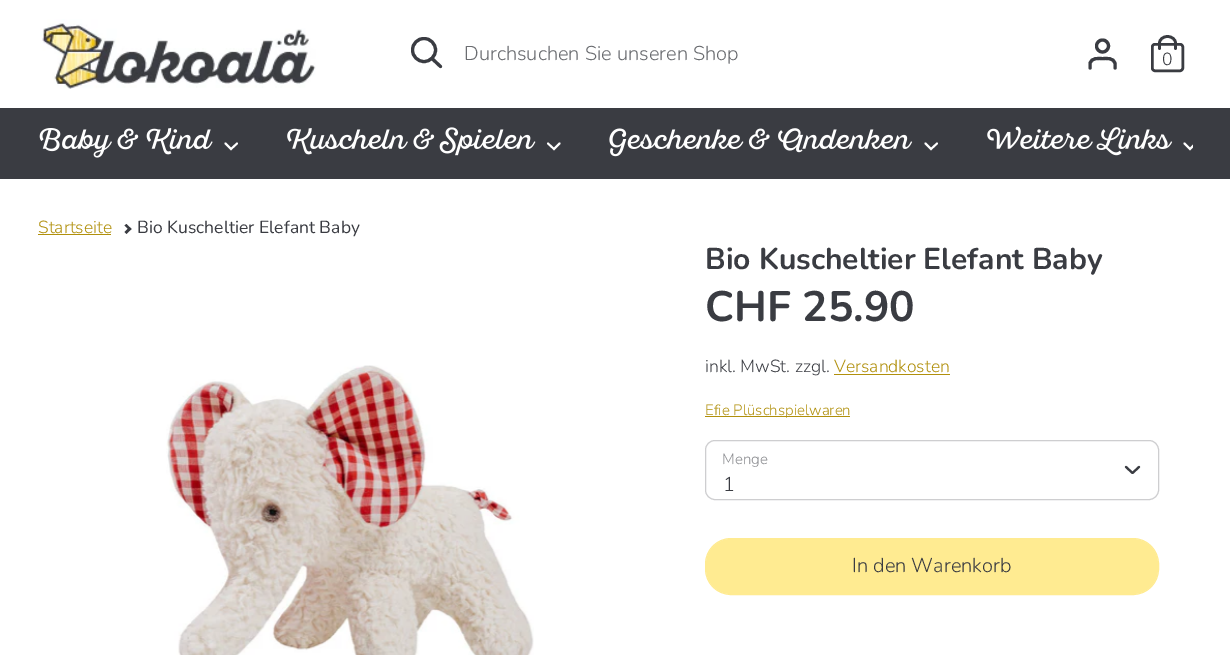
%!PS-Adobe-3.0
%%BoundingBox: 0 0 1230 655
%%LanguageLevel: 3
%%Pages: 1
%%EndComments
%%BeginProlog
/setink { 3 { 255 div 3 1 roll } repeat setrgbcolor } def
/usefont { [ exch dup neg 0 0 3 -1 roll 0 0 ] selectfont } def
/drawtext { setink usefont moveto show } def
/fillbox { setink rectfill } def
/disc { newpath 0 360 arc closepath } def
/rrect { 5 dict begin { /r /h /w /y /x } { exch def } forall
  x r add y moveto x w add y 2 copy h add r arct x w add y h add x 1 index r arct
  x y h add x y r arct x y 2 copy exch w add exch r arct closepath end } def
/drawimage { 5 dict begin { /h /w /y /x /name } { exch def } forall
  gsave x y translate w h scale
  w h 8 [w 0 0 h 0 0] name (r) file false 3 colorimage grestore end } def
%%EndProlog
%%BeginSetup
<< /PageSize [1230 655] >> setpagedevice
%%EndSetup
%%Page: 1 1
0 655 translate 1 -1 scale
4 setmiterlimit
0 0 1230 655 255 255 255 fillbox
(assets/img1.rgb) 40 19 276 70 drawimage
58 60 66 setink
3.1 setlinewidth
424 50 11.5 disc stroke
1 setlinecap
440.5 66.5 moveto 432 58.5 lineto stroke
(Durchsuchen Sie unseren Shop) 464 60 /Nunito-Light 20 107 109 113 drawtext
58 60 66 setink
1115 68 moveto 1115 63.5 lineto 1113.5 57.5 1107 58.5 1102.5 58.5 curveto 1098 58.5 1091.5 57.5 1090 63.5 curveto 1090 68 lineto stroke
0 setlinecap
1102.5 46 6 disc stroke
2.5 setlinewidth
1152.25 44.25 30.5 26.5 2.75 rrect stroke
2.7 setlinewidth
1 setlinecap
1159.5 48.5 moveto 1159.5 43 lineto 1159.5 39.5 1163 36.5 1167.5 36.5 curveto 1172 36.5 1175.5 39.5 1175.5 43 curveto 1175.5 48.5 lineto stroke
(0) 1162 65 /Nunito-Light 17.5 58 60 66 drawtext
0 108 1230 71 58 60 66 fillbox
(assets/img2.rgb) 39 128 174 30 drawimage
255 255 255 setink
1.9 setlinewidth
225.5 143.5 moveto 231 149 lineto 237 143.5 lineto stroke
(assets/img3.rgb) 287 127 249 29 drawimage
548 143.5 moveto 554 149 lineto 559.5 143.5 lineto stroke
(assets/img4.rgb) 609 128 304 29 drawimage
925.5 143.5 moveto 931 149 lineto 937 143.5 lineto stroke
(assets/img5.rgb) 987 126 186 30 drawimage
gsave
1179 135 14 23 rectclip
1184.5 143.5 moveto 1190 149 lineto 1195.5 143.5 lineto stroke
grestore
(Startseite) 38 233 /Nunito-Light 17.5 177 144 12 drawtext
38 234 73 1 177 144 12 fillbox
58 60 66 setink
126.5 224 moveto 131.5 229 lineto 129.5 230.5 lineto 124.5 225.5 lineto closepath fill
129.5 227 moveto 131.5 229 lineto 126.5 234 lineto 124.5 232 lineto closepath fill
(Bio Kuscheltier Elefant Baby) 137 233 /Nunito-Regular 17.5 58 60 66 drawtext
(assets/img6.rgb) 166 365 368 290 drawimage
(Bio Kuscheltier Elefant Baby) 705 269 /Nunito-Bold 30 58 60 66 drawtext
(CHF 25.90) 705 321 /Nunito-Bold 42.5 58 60 66 drawtext
(inkl. MwSt. zzgl.) 705 372 /Nunito-Light 17.5 58 60 66 drawtext
(Versandkosten) 834 372 /Nunito-Light 17.5 177 144 12 drawtext
834 374 116 1 177 144 12 fillbox
705 416 145 1 177 144 12 fillbox
(Efie Plüschspielwaren) 705 415 /Nunito-Light 15 177 144 12 drawtext
206 206 208 setink
1 setlinewidth
0 setlinecap
705.5 440.5 453 59 9.5 rrect stroke
(Menge) 722 464 /Nunito-Light 15 137 138 142 drawtext
58 60 66 setink
2.1 setlinewidth
1 setlinecap
1 setlinejoin
1126 467 moveto 1132.5 473 lineto 1139 467 lineto stroke
(1) 723 491 /Nunito-Light 20 58 60 66 drawtext
255 235 145 setink
1 setlinewidth
0 setlinecap
0 setlinejoin
705.5 538.5 453 56 25.5 rrect stroke
706 539 452 55 25 rrect fill
(In den Warenkorb) 852 572 /Nunito-Light 20 58 60 66 drawtext
showpage
%%EOF
